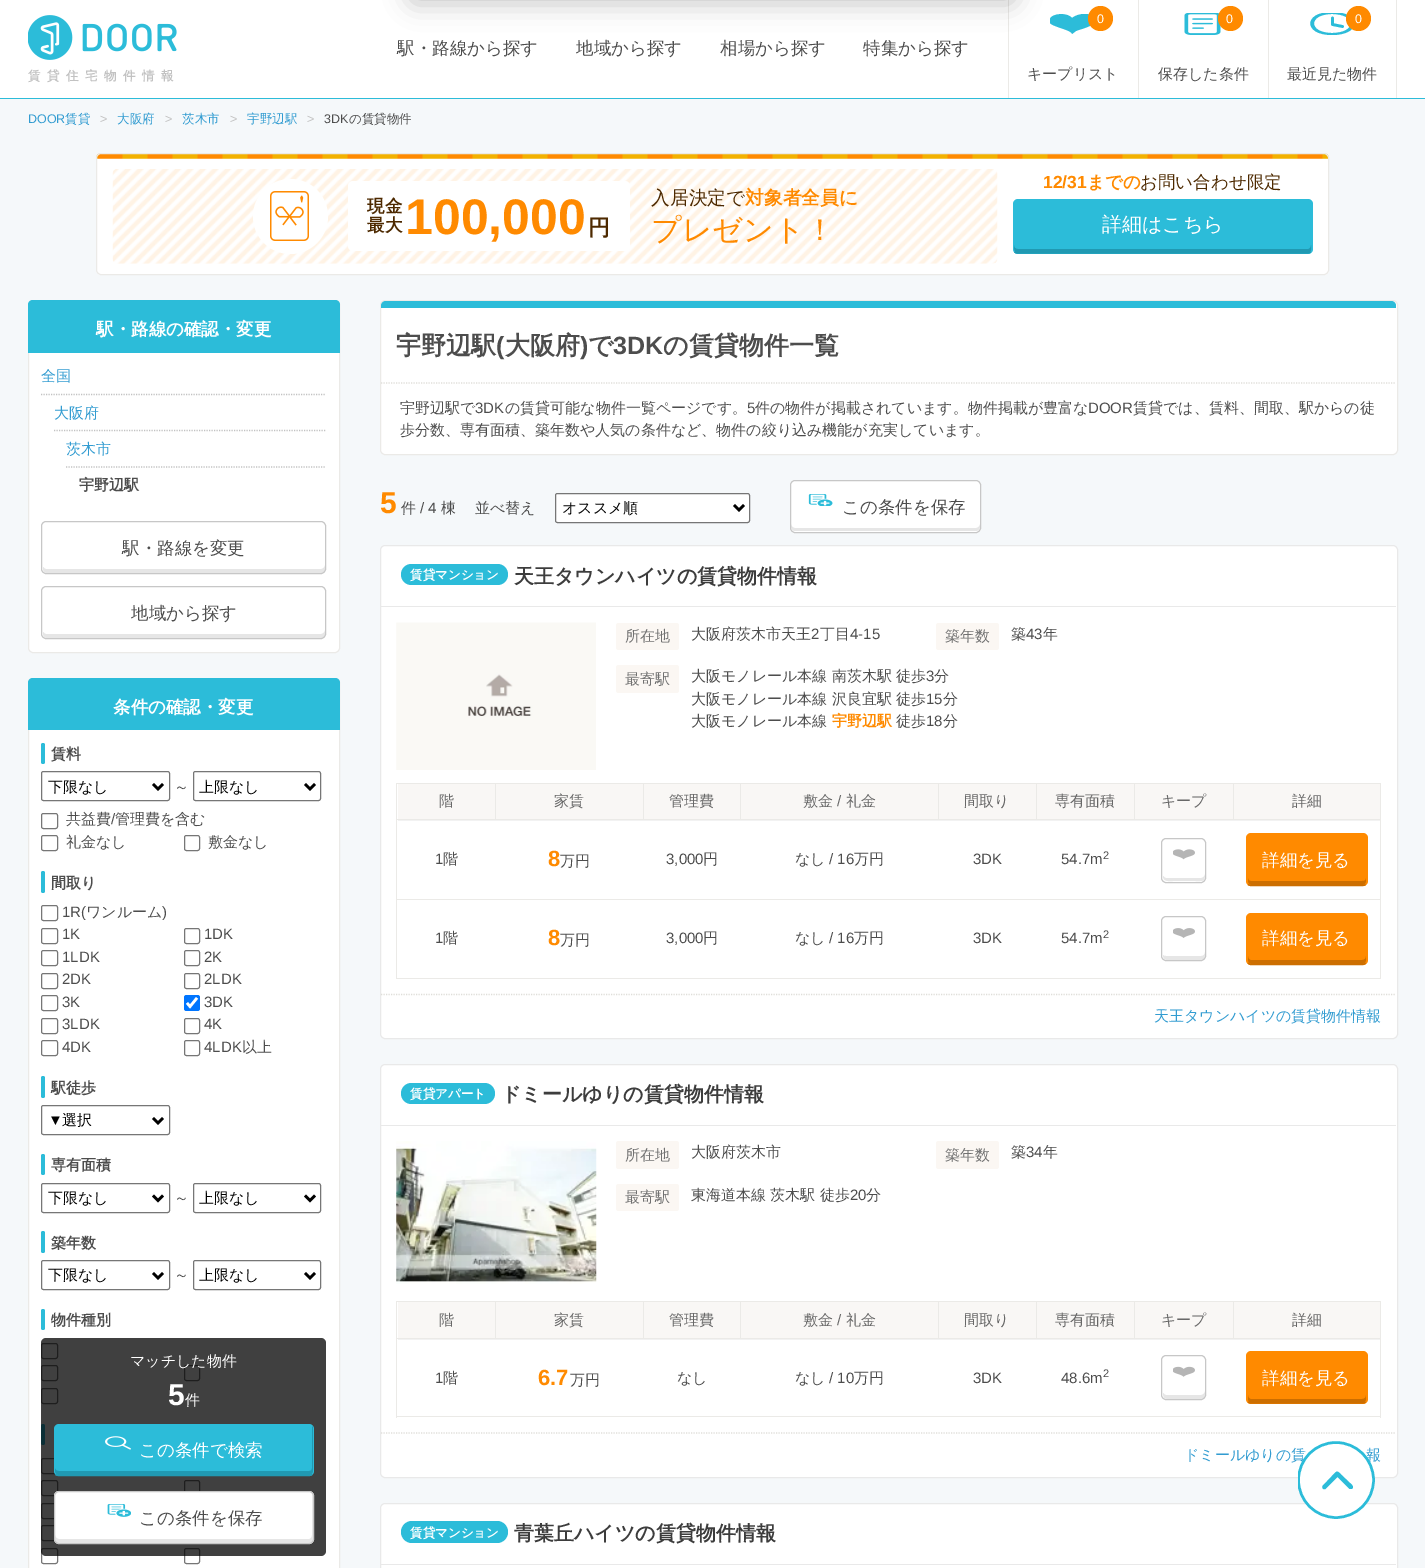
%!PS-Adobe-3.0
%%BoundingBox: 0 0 1425 1568
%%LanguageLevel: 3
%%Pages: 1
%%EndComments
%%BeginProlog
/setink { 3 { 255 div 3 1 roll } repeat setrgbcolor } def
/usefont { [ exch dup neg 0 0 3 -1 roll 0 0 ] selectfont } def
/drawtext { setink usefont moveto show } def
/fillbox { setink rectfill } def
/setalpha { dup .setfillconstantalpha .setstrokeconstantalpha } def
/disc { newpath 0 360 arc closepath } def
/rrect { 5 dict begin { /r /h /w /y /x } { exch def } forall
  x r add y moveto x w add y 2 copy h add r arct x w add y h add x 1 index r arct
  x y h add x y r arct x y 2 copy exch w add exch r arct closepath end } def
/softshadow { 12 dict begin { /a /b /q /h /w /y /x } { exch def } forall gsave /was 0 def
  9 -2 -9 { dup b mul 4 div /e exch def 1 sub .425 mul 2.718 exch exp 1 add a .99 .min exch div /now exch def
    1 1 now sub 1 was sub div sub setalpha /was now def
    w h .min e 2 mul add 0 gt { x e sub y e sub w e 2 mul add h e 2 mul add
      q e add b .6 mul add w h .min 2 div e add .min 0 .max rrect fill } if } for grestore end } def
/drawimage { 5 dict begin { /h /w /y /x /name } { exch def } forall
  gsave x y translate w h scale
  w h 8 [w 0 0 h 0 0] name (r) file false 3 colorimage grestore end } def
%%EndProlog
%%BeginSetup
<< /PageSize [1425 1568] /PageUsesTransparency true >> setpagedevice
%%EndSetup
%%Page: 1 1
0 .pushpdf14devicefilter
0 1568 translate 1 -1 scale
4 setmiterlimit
0 0 1425 1568 245 248 250 fillbox
0 0 1425 98 255 255 255 fillbox
1008 0 1 98 235 234 231 fillbox
gsave
1050 13 45 22 rectclip
44 188 217 setink
1084 14 moveto 1077 14 1072 18 1072 18 curveto 1066 11 1046 14 1050 23 curveto 1053 27 1072 30 1072 34 curveto 1076 31 lineto 1080 29 1101 25 1094 17 curveto 1091 14 1087 14 1084 14 curveto closepath fill
grestore
0 0 0 setink
409 -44 607 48 6 12.5 0.22 softshadow
0 98 1425 1 44 188 217 fillbox
(assets/img1.rgb) 28 15 149 45 drawimage
/WenQuanYiZenHei-Bold 12.5 usefont
194 194 194 setink
28 80 moveto 6.5 0 (賃貸住宅物件情報) ashow
(駅・路線から探す) 397 54 /WenQuanYiZenHei-Medium 17.5 77 77 77 drawtext
(地域から探す) 576 54 /WenQuanYiZenHei-Medium 17.5 77 77 77 drawtext
(相場から探す) 720 54 /WenQuanYiZenHei-Medium 17.5 77 77 77 drawtext
(特集から探す) 863 54 /WenQuanYiZenHei-Medium 17.5 77 77 77 drawtext
1138 0 1 98 235 234 231 fillbox
255 138 0 setink
1100.5 18.5 12.5 disc fill
(0) 1097 23 /LiberationSans-Regular 12.5 255 255 255 drawtext
(キープリスト) 1027 79 /WenQuanYiZenHei-Medium 15 77 77 77 drawtext
1268 0 1 98 235 234 231 fillbox
(assets/img2.rgb) 1184 13 37 22 drawimage
255 138 0 setink
1230.5 18.5 12.5 disc fill
(0) 1226 23 /LiberationSans-Regular 12.5 255 255 255 drawtext
(保存した条件) 1158 79 /WenQuanYiZenHei-Medium 15 77 77 77 drawtext
1396 0 1 98 235 234 231 fillbox
gsave
1310 13 45 22 rectclip
44 188 217 setink
1332 14 moveto 1357 14 1357 33 1332 33 curveto 1308 33 1308 14 1332 14 curveto 1332 12 moveto 1303 12 1303 35 1332 35 curveto 1362 35 1362 12 1332 12 curveto closepath fill
grestore
255 138 0 setink
1358.5 18.5 12.5 disc fill
(0) 1355 23 /LiberationSans-Regular 12.5 255 255 255 drawtext
44 188 217 setink
2.7 setlinewidth
1 setlinecap
1 setlinejoin
1332.5 18 moveto 1332.5 24.5 lineto 1342.5 26.5 lineto stroke
(最近見た物件) 1287 79 /WenQuanYiZenHei-Medium 15 77 77 77 drawtext
(DOOR) 28 123 /LiberationSans-Regular 12.5 50 156 209 drawtext
(賃貸) 65 123 /WenQuanYiZenHei-Medium 12.5 50 156 209 drawtext
(>) 100 123 /LiberationSans-Regular 12.5 194 194 194 drawtext
(大阪府) 117 123 /WenQuanYiZenHei-Medium 12.5 50 156 209 drawtext
(>) 165 123 /LiberationSans-Regular 12.5 194 194 194 drawtext
(茨木市) 182 123 /WenQuanYiZenHei-Medium 12.5 50 156 209 drawtext
(>) 230 123 /LiberationSans-Regular 12.5 194 194 194 drawtext
(宇野辺駅) 247 123 /WenQuanYiZenHei-Medium 12.5 50 156 209 drawtext
(>) 307 123 /LiberationSans-Regular 12.5 194 194 194 drawtext
(3DK) 324 123 /LiberationSans-Regular 12.5 77 77 77 drawtext
(の賃貸物件) 349 123 /WenQuanYiZenHei-Medium 12.5 77 77 77 drawtext
255 255 255 setink
96 153 1233 122 5 rrect fill
(assets/img3.rgb) 96 153 1233 6 drawimage
235 234 231 setink
1 setlinewidth
0 setlinecap
0 setlinejoin
96.5 153.5 1232 121 4.5 rrect stroke
(assets/img4.rgb) 112 169 886 95 drawimage
255 255 255 setink
290.5 216.5 37.5 disc fill
(assets/img5.rgb) 270 191 39 50 drawimage
348 181 282 70 5 rrect fill
(現金) 367 212 /WenQuanYiZenHei-Bold 17.5 77 41 0 drawtext
(最大) 367 231 /WenQuanYiZenHei-Bold 17.5 77 41 0 drawtext
(100,000) 405 234 /LiberationSans-Bold 50 255 138 0 drawtext
(円) 588 235 /WenQuanYiZenHei-Bold 22 77 41 0 drawtext
(入居決定で) 651 204 /WenQuanYiZenHei-Medium 18.75 77 41 0 drawtext
(対象者全員に) 745 204 /WenQuanYiZenHei-Bold 18.75 255 138 0 drawtext
(プレゼント！) 651 240 /WenQuanYiZenHei-Medium 30 255 138 0 drawtext
(12/31) 1043 188 /LiberationSans-Bold 17.5 255 138 0 drawtext
(までの) 1087 188 /WenQuanYiZenHei-Bold 17.5 255 138 0 drawtext
(お問い合わせ限定) 1140 188 /WenQuanYiZenHei-Medium 17.5 77 41 0 drawtext
44 188 217 setink
1013 199 300 55 5 rrect fill
32 153 178 setink
1014 245 moveto 1014 248 1014 253 1018 253 curveto 1308 253 lineto 1312 252 1311 248 1311 245 curveto 1311 247 1310 249 1308 249 curveto 1018 249 lineto 1015 249 1014 247 1014 245 curveto closepath fill
1.2 setlinewidth
1310.5 252 moveto 1310 252.5 1308.5 253 1307.5 253 curveto 1017.5 253 lineto 1016.5 253 1015 252.5 1014.5 252 curveto stroke
(詳細はこちら) 1102 231 /WenQuanYiZenHei-Medium 20 255 255 255 drawtext
28.5 300.5 311 352 4.5 rrect gsave fill grestore
235 234 231 setink
1 setlinewidth
stroke
44 188 217 setink
33 300 moveto 335 300 lineto 338 300 340 302 340 305 curveto 340 353 lineto 28 353 lineto 28 305 lineto 28 302 30 300 33 300 curveto closepath fill
(駅・路線の確認・変更) 96 335 /WenQuanYiZenHei-Bold 17.5 255 255 255 drawtext
194 194 194 setink
1.2 setlinewidth
[1.25 1.25] 0 setdash
41 394.5 moveto 326 394.5 lineto stroke
(全国) 41 381 /WenQuanYiZenHei-Medium 15 50 156 209 drawtext
194 194 194 setink
54 430.5 moveto 326 430.5 lineto stroke
(大阪府) 54 418 /WenQuanYiZenHei-Medium 15 50 156 209 drawtext
194 194 194 setink
66 467 moveto 326 467 lineto stroke
(茨木市) 66 454 /WenQuanYiZenHei-Medium 15 50 156 209 drawtext
(宇野辺駅) 79 490 /WenQuanYiZenHei-Bold 15 77 77 77 drawtext
230 230 230 setink
43 567 moveto 43 569 lineto 43 571 45 573 47 573 curveto 321 573 lineto 323 573 325 571 325 569 curveto 325 565 lineto 325 567 323 569 321 569 curveto 46 569 lineto 45 569 44 568 43 567 curveto closepath fill
199 199 199 setink
1 setlinewidth
[] 0 setdash
41.5 521.5 284 52 4.5 rrect stroke
(駅・路線を変更) 122 554 /WenQuanYiZenHei-Medium 17.5 77 77 77 drawtext
230 230 230 setink
43 632 moveto 43 634 lineto 43 636 45 638 47 638 curveto 321 638 lineto 323 638 325 636 325 634 curveto 325 630 lineto 325 632 323 634 321 634 curveto 46 634 lineto 45 634 44 633 43 632 curveto closepath fill
199 199 199 setink
41.5 586.5 284 52 4.5 rrect stroke
(地域から探す) 131 619 /WenQuanYiZenHei-Medium 17.5 77 77 77 drawtext
255 255 255 setink
28.5 678.5 311 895 4.5 rrect gsave fill grestore
235 234 231 setink
stroke
44 188 217 setink
33 678 moveto 335 678 lineto 338 678 340 680 340 683 curveto 340 730 lineto 28 730 lineto 28 683 lineto 28 680 30 678 33 678 curveto closepath fill
(条件の確認・変更) 113 713 /WenQuanYiZenHei-Bold 17.5 255 255 255 drawtext
44 188 217 setink
41 743 4 21 2 rrect fill
(賃料) 51 759 /WenQuanYiZenHei-Bold 15 77 77 77 drawtext
118 118 118 setink
41.5 771.5 128 29 2 rrect stroke
0 0 0 setink
2.5 setlinewidth
153 784 moveto 158 789 lineto 163 784 lineto stroke
(下限なし) 48 792 /WenQuanYiZenHei-Medium 15 0 0 0 drawtext
(～) 174 792 /WenQuanYiZenHei-Medium 15 77 77 77 drawtext
118 118 118 setink
1 setlinewidth
193.5 771.5 127 29 2 rrect stroke
0 0 0 setink
2.5 setlinewidth
305 784 moveto 310 789 lineto 315 784 lineto stroke
(上限なし) 199 792 /WenQuanYiZenHei-Medium 15 0 0 0 drawtext
118 118 118 setink
1 setlinewidth
41.5 813.5 16 15 2 rrect stroke
(共益費) 66 824 /WenQuanYiZenHei-Medium 15 77 77 77 drawtext
(/) 111 824 /LiberationSans-Regular 15 77 77 77 drawtext
(管理費を含む) 115 824 /WenQuanYiZenHei-Medium 15 77 77 77 drawtext
118 118 118 setink
41.5 835.5 16 15 2 rrect stroke
(礼金なし) 66 847 /WenQuanYiZenHei-Medium 15 77 77 77 drawtext
118 118 118 setink
184.5 835.5 15 15 2 rrect stroke
(敷金なし) 208 847 /WenQuanYiZenHei-Medium 15 77 77 77 drawtext
44 188 217 setink
41 871 4 22 2 rrect fill
(間取り) 51 888 /WenQuanYiZenHei-Bold 15 77 77 77 drawtext
118 118 118 setink
41.5 905.5 16 15 2 rrect stroke
(1R\() 62 917 /LiberationSans-Regular 15 77 77 77 drawtext
(ワンルーム) 86 917 /WenQuanYiZenHei-Medium 15 77 77 77 drawtext
(\)) 162 917 /LiberationSans-Regular 15 77 77 77 drawtext
118 118 118 setink
41.5 928.5 16 15 2 rrect stroke
(1K) 62 939 /LiberationSans-Regular 15 77 77 77 drawtext
118 118 118 setink
184.5 928.5 15 15 2 rrect stroke
(1DK) 204 939 /LiberationSans-Regular 15 77 77 77 drawtext
118 118 118 setink
41.5 950.5 16 15 2 rrect stroke
(1LDK) 62 962 /LiberationSans-Regular 15 77 77 77 drawtext
118 118 118 setink
184.5 950.5 15 15 2 rrect stroke
(2K) 204 962 /LiberationSans-Regular 15 77 77 77 drawtext
118 118 118 setink
41.5 973.5 16 15 2 rrect stroke
(2DK) 62 984 /LiberationSans-Regular 15 77 77 77 drawtext
118 118 118 setink
184.5 973.5 15 15 2 rrect stroke
(2LDK) 204 984 /LiberationSans-Regular 15 77 77 77 drawtext
118 118 118 setink
41.5 995.5 16 15 2 rrect stroke
(3K) 62 1007 /LiberationSans-Regular 15 77 77 77 drawtext
0 117 255 setink
184 995 16 16 2.5 rrect fill
255 255 255 setink
2.6 setlinewidth
187 1003 moveto 190 1006.5 lineto 197 998 lineto stroke
(3DK) 204 1007 /LiberationSans-Regular 15 77 77 77 drawtext
118 118 118 setink
1 setlinewidth
41.5 1018.5 16 15 2 rrect stroke
(3LDK) 62 1029 /LiberationSans-Regular 15 77 77 77 drawtext
118 118 118 setink
184.5 1018.5 15 15 2 rrect stroke
(4K) 204 1029 /LiberationSans-Regular 15 77 77 77 drawtext
118 118 118 setink
41.5 1040.5 16 15 2 rrect stroke
(4DK) 62 1052 /LiberationSans-Regular 15 77 77 77 drawtext
118 118 118 setink
184.5 1040.5 15 15 2 rrect stroke
(4LDK) 204 1052 /LiberationSans-Regular 15 77 77 77 drawtext
(以上) 242 1052 /WenQuanYiZenHei-Medium 15 77 77 77 drawtext
44 188 217 setink
41 1076 4 22 2 rrect fill
(駅徒歩) 51 1093 /WenQuanYiZenHei-Bold 15 77 77 77 drawtext
118 118 118 setink
41.5 1105.5 128 29 2 rrect stroke
0 0 0 setink
2.5 setlinewidth
153 1118 moveto 158 1123 lineto 163 1118 lineto stroke
(▼) 48 1125 /LiberationSans-Regular 15 0 0 0 drawtext
(選択) 62 1125 /WenQuanYiZenHei-Medium 15 0 0 0 drawtext
44 188 217 setink
41 1154 4 21 2 rrect fill
(専有面積) 51 1170 /WenQuanYiZenHei-Bold 15 77 77 77 drawtext
118 118 118 setink
1 setlinewidth
41.5 1183.5 128 29 2 rrect stroke
0 0 0 setink
2.5 setlinewidth
153 1195.5 moveto 158 1200.5 lineto 163 1195.5 lineto stroke
(下限なし) 48 1203 /WenQuanYiZenHei-Medium 15 0 0 0 drawtext
(～) 174 1203 /WenQuanYiZenHei-Medium 15 77 77 77 drawtext
118 118 118 setink
1 setlinewidth
193.5 1183.5 127 29 2 rrect stroke
0 0 0 setink
2.5 setlinewidth
305 1195.5 moveto 310 1200.5 lineto 315 1195.5 lineto stroke
(上限なし) 199 1203 /WenQuanYiZenHei-Medium 15 0 0 0 drawtext
44 188 217 setink
41 1231 4 22 2 rrect fill
(築年数) 51 1248 /WenQuanYiZenHei-Bold 15 77 77 77 drawtext
118 118 118 setink
1 setlinewidth
41.5 1260.5 128 29 2 rrect stroke
0 0 0 setink
2.5 setlinewidth
153 1273 moveto 158 1278 lineto 163 1273 lineto stroke
(下限なし) 48 1280 /WenQuanYiZenHei-Medium 15 0 0 0 drawtext
(～) 174 1280 /WenQuanYiZenHei-Medium 15 77 77 77 drawtext
118 118 118 setink
1 setlinewidth
193.5 1260.5 127 29 2 rrect stroke
0 0 0 setink
2.5 setlinewidth
305 1273 moveto 310 1278 lineto 315 1273 lineto stroke
(上限なし) 199 1280 /WenQuanYiZenHei-Medium 15 0 0 0 drawtext
44 188 217 setink
41 1309 4 21 2 rrect fill
(物件種別) 51 1325 /WenQuanYiZenHei-Bold 15 77 77 77 drawtext
118 118 118 setink
1 setlinewidth
41.5 1343.5 16 15 2 rrect stroke
41.5 1365.5 16 15 2 rrect stroke
184.5 1365.5 15 15 2 rrect stroke
41.5 1388.5 16 15 2 rrect stroke
44 188 217 setink
41 1424 4 21 2 rrect fill
118 118 118 setink
41.5 1458.5 16 15 2 rrect stroke
41.5 1480.5 16 15 2 rrect stroke
184.5 1480.5 15 15 2 rrect stroke
41.5 1503.5 16 15 2 rrect stroke
41.5 1525.5 16 15 2 rrect stroke
41.5 1548.5 16 15 2 rrect stroke
184.5 1548.5 15 15 2 rrect stroke
0.75 setalpha
0 0 0 setink
41 1338 285 218 5 rrect fill
1 setalpha
(マッチした物件) 130 1366 /WenQuanYiZenHei-Medium 15 255 255 255 drawtext
(5) 168 1405 /LiberationSans-Bold 30 255 255 255 drawtext
(件) 185 1405 /WenQuanYiZenHei-Medium 15 255 255 255 drawtext
44 188 217 setink
54 1424 260 52 5 rrect fill
32 153 178 setink
55 1468 moveto 55 1471 lineto 55 1473 57 1475 59 1475 curveto 309 1475 lineto 311 1475 313 1473 313 1471 curveto 313 1429 lineto 313 1428 313 1427 312 1426 curveto 312 1468 lineto 312 1470 311 1471 309 1471 curveto 59 1471 lineto 57 1471 55 1470 55 1468 curveto closepath fill
1.2 setlinewidth
312 1474.5 moveto 311 1475 310 1475.5 309 1475.5 curveto 59 1475.5 lineto 57.5 1475.5 56.5 1475 55.5 1474.5 curveto stroke
(assets/img6.rgb) 105 1436 26 14 drawimage
(この条件で検索) 139 1456 /WenQuanYiZenHei-Medium 17.5 255 255 255 drawtext
54 1491 260 53 5 rrect fill
230 230 230 setink
55 1535 moveto 55 1539 lineto 55 1541 57 1543 59 1543 curveto 309 1543 lineto 311 1543 313 1541 313 1539 curveto 313 1497 lineto 313 1496 313 1495 312 1494 curveto 312 1535 lineto 312 1537 311 1539 309 1539 curveto 59 1539 lineto 57 1539 55 1537 55 1535 curveto closepath fill
199 199 199 setink
1 setlinewidth
54.5 1491.5 259 52 4.5 rrect stroke
(assets/img7.rgb) 107 1504 24 13 drawimage
(この条件を保存) 139 1524 /WenQuanYiZenHei-Medium 17.5 77 77 77 drawtext
255 255 255 setink
380.5 300.5 1017 154 4.5 rrect gsave fill grestore
235 234 231 setink
stroke
44 188 217 setink
386 301 moveto 1391 301 lineto 1394 301 1396 303 1396 306 curveto 1396 308 lineto 381 308 lineto 381 306 lineto 381 303 383 301 386 301 curveto closepath fill
(宇野辺駅) 396 354 /WenQuanYiZenHei-Bold 25 77 77 77 drawtext
(\() 496 354 /LiberationSans-Bold 25 77 77 77 drawtext
(大阪府) 505 354 /WenQuanYiZenHei-Bold 25 77 77 77 drawtext
(\)) 580 354 /LiberationSans-Bold 25 77 77 77 drawtext
(で) 588 354 /WenQuanYiZenHei-Bold 25 77 77 77 drawtext
(3DK) 613 354 /LiberationSans-Bold 25 77 77 77 drawtext
(の賃貸物件一覧) 663 354 /WenQuanYiZenHei-Bold 25 77 77 77 drawtext
223 222 217 setink
1.2 setlinewidth
[1.25 1.25] 0 setdash
381 383 moveto 1396 383 lineto stroke
(宇野辺駅で) 400 413 /WenQuanYiZenHei-Medium 15 77 77 77 drawtext
(3DK) 475 413 /LiberationSans-Regular 15 77 77 77 drawtext
(の賃貸可能な物件一覧ページです。) 505 413 /WenQuanYiZenHei-Medium 15 77 77 77 drawtext
(5) 747 413 /LiberationSans-Regular 15 77 77 77 drawtext
(件の物件が掲載されています。物件掲載が豊富な) 755 413 /WenQuanYiZenHei-Medium 15 77 77 77 drawtext
(DOOR) 1088 413 /LiberationSans-Regular 15 77 77 77 drawtext
(賃貸では、賃料、間取、駅からの徒) 1133 413 /WenQuanYiZenHei-Medium 15 77 77 77 drawtext
(歩分数、専有面積、築年数や人気の条件など、物件の絞り込み機能が充実しています。) 400 435 /WenQuanYiZenHei-Medium 15 77 77 77 drawtext
(5) 380 513 /LiberationSans-Bold 30 255 138 0 drawtext
(件) 401 513 /WenQuanYiZenHei-Medium 15 77 77 77 drawtext
(/ 4) 420 513 /LiberationSans-Regular 15 77 77 77 drawtext
(棟) 441 513 /WenQuanYiZenHei-Medium 15 77 77 77 drawtext
(並べ替え) 475 513 /WenQuanYiZenHei-Medium 15 77 77 77 drawtext
255 255 255 setink
555.5 493.5 194 29 2 rrect gsave fill grestore
118 118 118 setink
1 setlinewidth
[] 0 setdash
stroke
0 0 0 setink
2.5 setlinewidth
734 505 moveto 739 510 lineto 744 505 lineto stroke
(オススメ順) 562 513 /WenQuanYiZenHei-Medium 15 0 0 0 drawtext
255 255 255 setink
790 480 191 53 5 rrect fill
230 230 230 setink
791 524 moveto 791 527 lineto 791 529 793 531 795 531 curveto 976 531 lineto 978 531 980 529 980 527 curveto 980 524 lineto 980 526 978 528 976 528 curveto 795 528 lineto 793 528 791 526 791 524 curveto closepath fill
199 199 199 setink
1 setlinewidth
790.5 480.5 190 52 4.5 rrect stroke
(assets/img8.rgb) 808 494 25 12 drawimage
(この条件を保存) 842 513 /WenQuanYiZenHei-Medium 17.5 77 77 77 drawtext
255 255 255 setink
380.5 545.5 1017 493 4.5 rrect gsave fill grestore
233 233 233 setink
stroke
381 606 1015 1 233 233 233 fillbox
44 188 217 setink
401 564 107 21 10.5 rrect fill
(賃貸マンション) 410 579 /WenQuanYiZenHei-Bold 12.5 255 255 255 drawtext
(天王タウンハイツの賃貸物件情報) 514 583 /WenQuanYiZenHei-Bold 20 61 61 61 drawtext
(assets/img9.rgb) 396 622 200 148 drawimage
251 247 243 setink
616 623 63 27 2.5 rrect fill
(所在地) 625 641 /WenQuanYiZenHei-Medium 15 113 113 113 drawtext
(大阪府茨木市天王) 691 639 /WenQuanYiZenHei-Medium 15 77 77 77 drawtext
(2) 811 639 /LiberationSans-Regular 15 77 77 77 drawtext
(丁目) 820 639 /WenQuanYiZenHei-Medium 15 77 77 77 drawtext
(4-15) 850 639 /LiberationSans-Regular 15 77 77 77 drawtext
251 247 243 setink
936 623 63 27 2.5 rrect fill
(築年数) 945 641 /WenQuanYiZenHei-Medium 15 113 113 113 drawtext
(築) 1011 639 /WenQuanYiZenHei-Medium 15 77 77 77 drawtext
(43) 1026 639 /LiberationSans-Regular 15 77 77 77 drawtext
(年) 1043 639 /WenQuanYiZenHei-Medium 15 77 77 77 drawtext
251 247 243 setink
616 665 63 28 2.5 rrect fill
(最寄駅) 625 684 /WenQuanYiZenHei-Medium 15 113 113 113 drawtext
(大阪モノレール本線 南茨木駅 徒歩) 691 681 /WenQuanYiZenHei-Medium 15 77 77 77 drawtext
(3) 926 681 /LiberationSans-Regular 15 77 77 77 drawtext
(分) 934 681 /WenQuanYiZenHei-Medium 15 77 77 77 drawtext
(大阪モノレール本線 沢良宜駅 徒歩) 691 704 /WenQuanYiZenHei-Medium 15 77 77 77 drawtext
(15) 926 704 /LiberationSans-Regular 15 77 77 77 drawtext
(分) 943 704 /WenQuanYiZenHei-Medium 15 77 77 77 drawtext
(大阪モノレール本線) 691 726 /WenQuanYiZenHei-Medium 15 77 77 77 drawtext
(宇野辺駅) 832 726 /WenQuanYiZenHei-Bold 15 255 138 0 drawtext
(徒歩) 896 726 /WenQuanYiZenHei-Medium 15 77 77 77 drawtext
(18) 926 726 /LiberationSans-Regular 15 77 77 77 drawtext
(分) 943 726 /WenQuanYiZenHei-Medium 15 77 77 77 drawtext
396 783 985 1 235 234 231 fillbox
1233 820 148 1 242 242 242 fillbox
1380 783 1 196 235 234 231 fillbox
396 978 985 1 235 234 231 fillbox
396 783 1 196 235 234 231 fillbox
398 820 97 1 242 242 242 fillbox
398 784 97 35 249 247 245 fillbox
(階) 439 806 /WenQuanYiZenHei-Medium 15 104 104 104 drawtext
242 242 242 setink
495 820 moveto 495 821 lineto 643 821 lineto 643 785 lineto 642 785 lineto 642 820 lineto closepath fill
496 784 147 35 249 247 245 fillbox
242 242 242 setink
1135 820 moveto 1135 821 lineto 1233 821 lineto 1233 785 lineto 1232 785 lineto 1232 820 lineto closepath fill
396 819 985 1 235 234 231 fillbox
495 783 1 37 235 234 231 fillbox
(家賃) 554 806 /WenQuanYiZenHei-Medium 15 104 104 104 drawtext
643 820 98 1 242 242 242 fillbox
644 784 96 35 249 247 245 fillbox
643 783 1 37 235 234 231 fillbox
(管理費) 669 806 /WenQuanYiZenHei-Medium 15 104 104 104 drawtext
242 242 242 setink
741 785 moveto 741 821 lineto 938 821 lineto 938 785 lineto 938 820 lineto 741 820 lineto closepath fill
741 784 197 35 249 247 245 fillbox
740 783 1 37 235 234 231 fillbox
(敷金) 803 806 /WenQuanYiZenHei-Medium 15 104 104 104 drawtext
(/) 837 806 /LiberationSans-Regular 15 104 104 104 drawtext
(礼金) 846 806 /WenQuanYiZenHei-Medium 15 104 104 104 drawtext
938 820 98 1 242 242 242 fillbox
939 784 97 35 249 247 245 fillbox
938 783 1 37 235 234 231 fillbox
(間取り) 964 806 /WenQuanYiZenHei-Medium 15 104 104 104 drawtext
242 242 242 setink
1036 785 moveto 1036 821 lineto 1135 821 lineto 1135 820 lineto 1036 820 lineto closepath fill
1037 784 97 35 249 247 245 fillbox
1036 783 1 37 235 234 231 fillbox
(専有面積) 1055 806 /WenQuanYiZenHei-Medium 15 104 104 104 drawtext
1135 784 98 35 249 247 245 fillbox
1134 783 1 37 235 234 231 fillbox
(キープ) 1161 806 /WenQuanYiZenHei-Medium 15 104 104 104 drawtext
1234 784 146 35 249 247 245 fillbox
1233 783 1 37 235 234 231 fillbox
(詳細) 1292 806 /WenQuanYiZenHei-Medium 15 104 104 104 drawtext
(1) 435 864 /LiberationSans-Regular 15 77 77 77 drawtext
(階) 443 864 /WenQuanYiZenHei-Medium 15 77 77 77 drawtext
(8) 548 866 /LiberationSans-Bold 22 255 138 0 drawtext
(万円) 560 866 /WenQuanYiZenHei-Medium 15 77 77 77 drawtext
(3,000) 666 864 /LiberationSans-Regular 15 77 77 77 drawtext
(円) 703 864 /WenQuanYiZenHei-Medium 15 77 77 77 drawtext
(なし) 795 864 /WenQuanYiZenHei-Medium 15 77 77 77 drawtext
(/ 16) 829 864 /LiberationSans-Regular 15 77 77 77 drawtext
(万円) 854 864 /WenQuanYiZenHei-Medium 15 77 77 77 drawtext
(3DK) 973 864 /LiberationSans-Regular 15 77 77 77 drawtext
(54.7m) 1061 864 /LiberationSans-Regular 15 77 77 77 drawtext
(2) 1103 859 /LiberationSans-Regular 11 77 77 77 drawtext
230 230 230 setink
1163 876 moveto 1163 882 1169 881 1173 881 curveto 1195 881 lineto 1203 881 1205 882 1205 874 curveto 1205 876 1203 878 1201 878 curveto 1166 878 lineto 1165 878 1164 877 1163 876 curveto closepath fill
199 199 199 setink
1161.5 838.5 44 44 4.5 rrect stroke
(assets/img10.rgb) 1173 849 22 11 drawimage
255 138 0 setink
1246 833 122 53 5 rrect fill
204 110 0 setink
1248 878 moveto 1248 881 lineto 1248 883 1250 885 1252 885 curveto 1362 885 lineto 1364 885 1366 883 1366 881 curveto 1366 878 lineto 1366 880 1365 881 1362 881 curveto 1251 881 lineto 1249 881 1248 880 1248 878 curveto closepath fill
1.2 setlinewidth
1365.5 884.5 moveto 1365 885 1363.5 885.5 1362.5 885.5 curveto 1251 885.5 lineto 1250 885.5 1249 885 1248 884.5 curveto stroke
(詳細を見る) 1262 866 /WenQuanYiZenHei-Medium 17.5 255 255 255 drawtext
(1) 435 943 /LiberationSans-Regular 15 77 77 77 drawtext
(階) 443 943 /WenQuanYiZenHei-Medium 15 77 77 77 drawtext
(8) 548 945 /LiberationSans-Bold 22 255 138 0 drawtext
(万円) 560 945 /WenQuanYiZenHei-Medium 15 77 77 77 drawtext
(3,000) 666 943 /LiberationSans-Regular 15 77 77 77 drawtext
(円) 703 943 /WenQuanYiZenHei-Medium 15 77 77 77 drawtext
(なし) 795 943 /WenQuanYiZenHei-Medium 15 77 77 77 drawtext
(/ 16) 829 943 /LiberationSans-Regular 15 77 77 77 drawtext
(万円) 854 943 /WenQuanYiZenHei-Medium 15 77 77 77 drawtext
(3DK) 973 943 /LiberationSans-Regular 15 77 77 77 drawtext
(54.7m) 1061 943 /LiberationSans-Regular 15 77 77 77 drawtext
(2) 1103 938 /LiberationSans-Regular 11 77 77 77 drawtext
230 230 230 setink
1163 955 moveto 1163 961 1168 960 1173 960 curveto 1195 960 lineto 1204 960 1205 960 1205 952 curveto 1205 955 1203 956 1201 956 curveto 1166 956 lineto 1165 956 1164 956 1163 955 curveto closepath fill
199 199 199 setink
1 setlinewidth
1161.5 916.5 44 44 4.5 rrect stroke
(assets/img11.rgb) 1173 928 22 10 drawimage
396 899 985 1 235 234 231 fillbox
255 138 0 setink
1246 913 122 52 5 rrect fill
204 110 0 setink
1248 956 moveto 1248 960 lineto 1248 962 1250 964 1252 964 curveto 1362 964 lineto 1364 964 1366 962 1366 960 curveto 1366 956 lineto 1366 958 1365 960 1362 960 curveto 1251 960 lineto 1249 960 1248 958 1248 956 curveto closepath fill
1.2 setlinewidth
1365.5 963 moveto 1365 964 1363.5 964.5 1362.5 964.5 curveto 1251 964.5 lineto 1250 964.5 1249 964 1248 963 curveto stroke
(詳細を見る) 1262 944 /WenQuanYiZenHei-Medium 17.5 255 255 255 drawtext
223 222 217 setink
[1.25 1.25] 0 setdash
381 994.5 moveto 1396 994.5 lineto stroke
(天王タウンハイツの賃貸物件情報) 1154 1021 /WenQuanYiZenHei-Medium 15 50 156 209 drawtext
255 255 255 setink
380.5 1064.5 1017 413 4.5 rrect gsave fill grestore
233 233 233 setink
1 setlinewidth
[] 0 setdash
stroke
381 1125 1015 1 233 233 233 fillbox
44 188 217 setink
401 1083 94 21 10.5 rrect fill
(賃貸アパート) 410 1098 /WenQuanYiZenHei-Bold 12.5 255 255 255 drawtext
(ドミールゆりの賃貸物件情報) 501 1101 /WenQuanYiZenHei-Bold 20 61 61 61 drawtext
(assets/img12.rgb) 396 1141 201 143 drawimage
251 247 243 setink
616 1141 63 28 2.5 rrect fill
(所在地) 625 1160 /WenQuanYiZenHei-Medium 15 113 113 113 drawtext
(大阪府茨木市) 691 1157 /WenQuanYiZenHei-Medium 15 77 77 77 drawtext
251 247 243 setink
936 1141 63 28 2.5 rrect fill
(築年数) 945 1160 /WenQuanYiZenHei-Medium 15 113 113 113 drawtext
(築) 1011 1157 /WenQuanYiZenHei-Medium 15 77 77 77 drawtext
(34) 1026 1157 /LiberationSans-Regular 15 77 77 77 drawtext
(年) 1043 1157 /WenQuanYiZenHei-Medium 15 77 77 77 drawtext
251 247 243 setink
616 1184 63 27 2.5 rrect fill
(最寄駅) 625 1202 /WenQuanYiZenHei-Medium 15 113 113 113 drawtext
(東海道本線 茨木駅 徒歩) 691 1200 /WenQuanYiZenHei-Medium 15 77 77 77 drawtext
(20) 850 1200 /LiberationSans-Regular 15 77 77 77 drawtext
(分) 866 1200 /WenQuanYiZenHei-Medium 15 77 77 77 drawtext
396 1301 985 1 235 234 231 fillbox
1233 1339 148 1 242 242 242 fillbox
1380 1301 1 117 235 234 231 fillbox
396 1416 985 1 235 234 231 fillbox
396 1301 1 117 235 234 231 fillbox
398 1339 97 1 242 242 242 fillbox
398 1302 97 36 249 247 245 fillbox
(階) 439 1325 /WenQuanYiZenHei-Medium 15 104 104 104 drawtext
242 242 242 setink
495 1339 moveto 495 1340 lineto 643 1340 lineto 643 1303 lineto 642 1303 lineto 642 1339 lineto closepath fill
496 1302 147 36 249 247 245 fillbox
242 242 242 setink
1135 1339 moveto 1135 1340 lineto 1233 1340 lineto 1233 1303 lineto 1232 1303 lineto 1232 1339 lineto closepath fill
396 1338 985 1 235 234 231 fillbox
495 1301 1 38 235 234 231 fillbox
(家賃) 554 1325 /WenQuanYiZenHei-Medium 15 104 104 104 drawtext
643 1339 98 1 242 242 242 fillbox
644 1302 96 36 249 247 245 fillbox
643 1301 1 38 235 234 231 fillbox
(管理費) 669 1325 /WenQuanYiZenHei-Medium 15 104 104 104 drawtext
242 242 242 setink
741 1303 moveto 741 1340 lineto 938 1340 lineto 938 1303 lineto 938 1339 lineto 741 1339 lineto closepath fill
741 1302 197 36 249 247 245 fillbox
740 1301 1 38 235 234 231 fillbox
(敷金) 803 1325 /WenQuanYiZenHei-Medium 15 104 104 104 drawtext
(/) 837 1325 /LiberationSans-Regular 15 104 104 104 drawtext
(礼金) 846 1325 /WenQuanYiZenHei-Medium 15 104 104 104 drawtext
938 1339 98 1 242 242 242 fillbox
939 1302 97 36 249 247 245 fillbox
938 1301 1 38 235 234 231 fillbox
(間取り) 964 1325 /WenQuanYiZenHei-Medium 15 104 104 104 drawtext
242 242 242 setink
1036 1303 moveto 1036 1340 lineto 1135 1340 lineto 1135 1339 lineto 1036 1339 lineto closepath fill
1037 1302 97 36 249 247 245 fillbox
1036 1301 1 38 235 234 231 fillbox
(専有面積) 1055 1325 /WenQuanYiZenHei-Medium 15 104 104 104 drawtext
1135 1302 98 36 249 247 245 fillbox
1134 1301 1 38 235 234 231 fillbox
(キープ) 1161 1325 /WenQuanYiZenHei-Medium 15 104 104 104 drawtext
1234 1302 146 36 249 247 245 fillbox
1233 1301 1 38 235 234 231 fillbox
(詳細) 1292 1325 /WenQuanYiZenHei-Medium 15 104 104 104 drawtext
(1) 435 1383 /LiberationSans-Regular 15 77 77 77 drawtext
(階) 443 1383 /WenQuanYiZenHei-Medium 15 77 77 77 drawtext
(6.7) 538 1385 /LiberationSans-Bold 22 255 138 0 drawtext
(万円) 570 1385 /WenQuanYiZenHei-Medium 15 77 77 77 drawtext
(なし) 677 1383 /WenQuanYiZenHei-Medium 15 77 77 77 drawtext
(なし) 795 1383 /WenQuanYiZenHei-Medium 15 77 77 77 drawtext
(/ 10) 829 1383 /LiberationSans-Regular 15 77 77 77 drawtext
(万円) 854 1383 /WenQuanYiZenHei-Medium 15 77 77 77 drawtext
(3DK) 973 1383 /LiberationSans-Regular 15 77 77 77 drawtext
(48.6m) 1061 1383 /LiberationSans-Regular 15 77 77 77 drawtext
(2) 1103 1377 /LiberationSans-Regular 11 77 77 77 drawtext
230 230 230 setink
1163 1393 moveto 1163 1400 1167 1399 1173 1399 curveto 1195 1399 lineto 1204 1399 1205 1399 1205 1391 curveto 1205 1393 1203 1395 1201 1395 curveto 1166 1395 lineto 1165 1395 1164 1394 1163 1393 curveto closepath fill
199 199 199 setink
1161.5 1355.5 44 44 4.5 rrect stroke
(assets/img13.rgb) 1173 1366 22 11 drawimage
255 138 0 setink
1246 1351 122 53 5 rrect fill
204 110 0 setink
1248 1395 moveto 1248 1399 lineto 1248 1401 1250 1403 1252 1403 curveto 1362 1403 lineto 1364 1403 1366 1401 1366 1399 curveto 1366 1395 lineto 1366 1397 1365 1399 1362 1399 curveto 1251 1399 lineto 1249 1399 1248 1397 1248 1395 curveto closepath fill
1.2 setlinewidth
1365.5 1402 moveto 1365 1402.5 1363.5 1403 1362.5 1403 curveto 1251 1403 lineto 1250 1403 1249 1402.5 1248 1402 curveto stroke
(詳細を見る) 1262 1384 /WenQuanYiZenHei-Medium 17.5 255 255 255 drawtext
223 222 217 setink
[1.25 1.25] 0 setdash
381 1433 moveto 1396 1433 lineto stroke
(ドミールゆりの賃) 1184 1460 /WenQuanYiZenHei-Medium 15 50 156 209 drawtext
(報) 1366 1460 /WenQuanYiZenHei-Medium 15 50 156 209 drawtext
255 255 255 setink
380.5 1503.5 1017 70 4.5 rrect gsave fill grestore
233 233 233 setink
1 setlinewidth
[] 0 setdash
stroke
381 1564 1015 1 233 233 233 fillbox
44 188 217 setink
401 1521 107 22 11 rrect fill
(賃貸マンション) 410 1537 /WenQuanYiZenHei-Bold 12.5 255 255 255 drawtext
(青葉丘ハイツの賃貸物件情報) 514 1540 /WenQuanYiZenHei-Bold 20 61 61 61 drawtext
255 255 255 setink
1336 1480 37.5 disc fill
gsave
1298 1441 77 78 rectclip
44 188 217 setink
2.5 setlinewidth
1336 1480 37.5 disc stroke
grestore
44 188 217 setink
1353 1487 moveto 1353 1488 1352.5 1488.5 1351.5 1489 curveto 1350.5 1489 1349.5 1489 1349 1488.5 curveto 1337.5 1477 lineto 1325.5 1489 lineto 1323.5 1490 1321.5 1488 1322.5 1486 curveto 1331.5 1476.5 lineto 1336.5 1471.5 1336.5 1469.5 1341 1474.5 curveto 1350 1483 lineto 1351 1484 1353 1485.5 1353 1487 curveto eofill
.poppdf14devicefilter showpage
%%EOF
